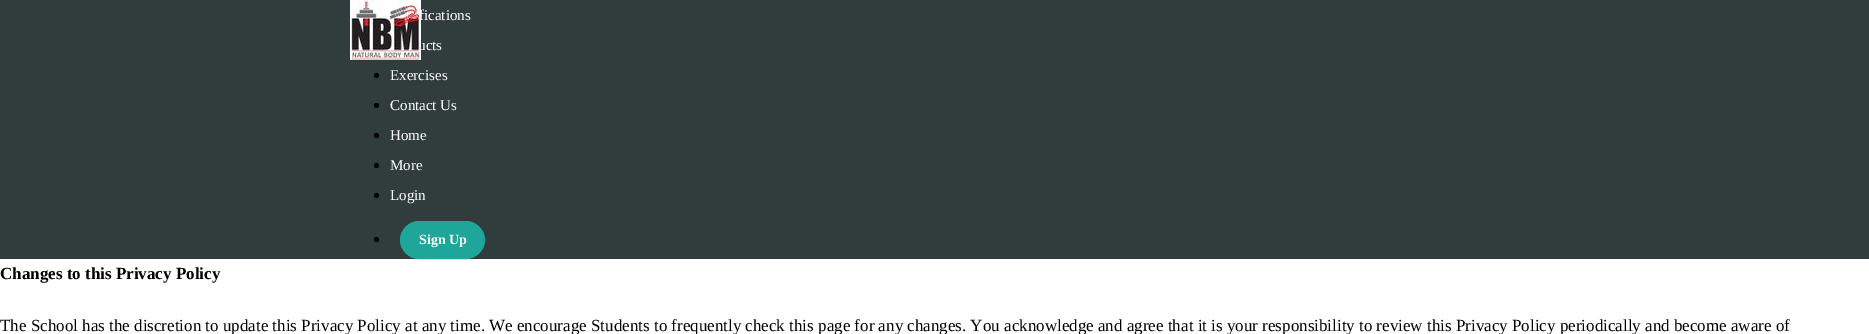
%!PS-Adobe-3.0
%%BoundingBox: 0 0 1869 334
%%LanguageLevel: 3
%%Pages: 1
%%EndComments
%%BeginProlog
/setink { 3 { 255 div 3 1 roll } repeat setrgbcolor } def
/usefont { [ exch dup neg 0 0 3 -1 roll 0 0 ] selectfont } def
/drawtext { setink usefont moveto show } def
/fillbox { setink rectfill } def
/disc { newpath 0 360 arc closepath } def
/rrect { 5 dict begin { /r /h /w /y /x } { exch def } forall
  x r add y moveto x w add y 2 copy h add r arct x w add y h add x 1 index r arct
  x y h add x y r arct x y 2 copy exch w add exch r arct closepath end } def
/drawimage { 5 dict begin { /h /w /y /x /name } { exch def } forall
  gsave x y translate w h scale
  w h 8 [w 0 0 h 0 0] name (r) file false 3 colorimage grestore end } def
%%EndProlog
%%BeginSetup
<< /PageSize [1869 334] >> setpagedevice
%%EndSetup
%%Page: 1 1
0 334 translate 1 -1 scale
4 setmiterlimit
0 0 1869 334 255 255 255 fillbox
0 0 1869 259 49 60 60 fillbox
(fications) 419 20 /LiberationSerif-Regular 15 255 255 255 drawtext
(ucts) 418 50 /LiberationSerif-Regular 15 255 255 255 drawtext
(assets/img1.rgb) 350 0 71 60 drawimage
0 0 0 setink
376.5 75.5 2.5 disc fill
(Exercises) 390 80 /LiberationSerif-Regular 15 255 255 255 drawtext
0 0 0 setink
376.5 105.5 2.5 disc fill
(Contact Us) 390 110 /LiberationSerif-Regular 15 255 255 255 drawtext
0 0 0 setink
376.5 135.5 2.5 disc fill
(Home) 390 140 /LiberationSerif-Regular 15 255 255 255 drawtext
0 0 0 setink
376.5 165.5 2.5 disc fill
(More) 390 170 /LiberationSerif-Regular 15 255 255 255 drawtext
0 0 0 setink
376.5 195.5 2.5 disc fill
(Login) 390 200 /LiberationSerif-Regular 15 255 255 255 drawtext
0 0 0 setink
376.5 239.5 2.5 disc fill
30 166 154 setink
400.5 221.5 84 37 18.5 rrect gsave fill grestore
stroke
(Sign Up) 419 244 /LiberationSerif-Bold 14 255 255 255 drawtext
(Changes to this Privacy Policy) 0 279 /LiberationSerif-Bold 17 0 0 0 drawtext
(The School has the discretion to update this Privacy Policy at any time. We encourage Students to frequently check this page for any changes. You acknowledge and agree that it is your responsibility to review this Privacy Policy periodically and become aware of) 0 331 /LiberationSerif-Regular 17 0 0 0 drawtext
showpage
%%EOF
